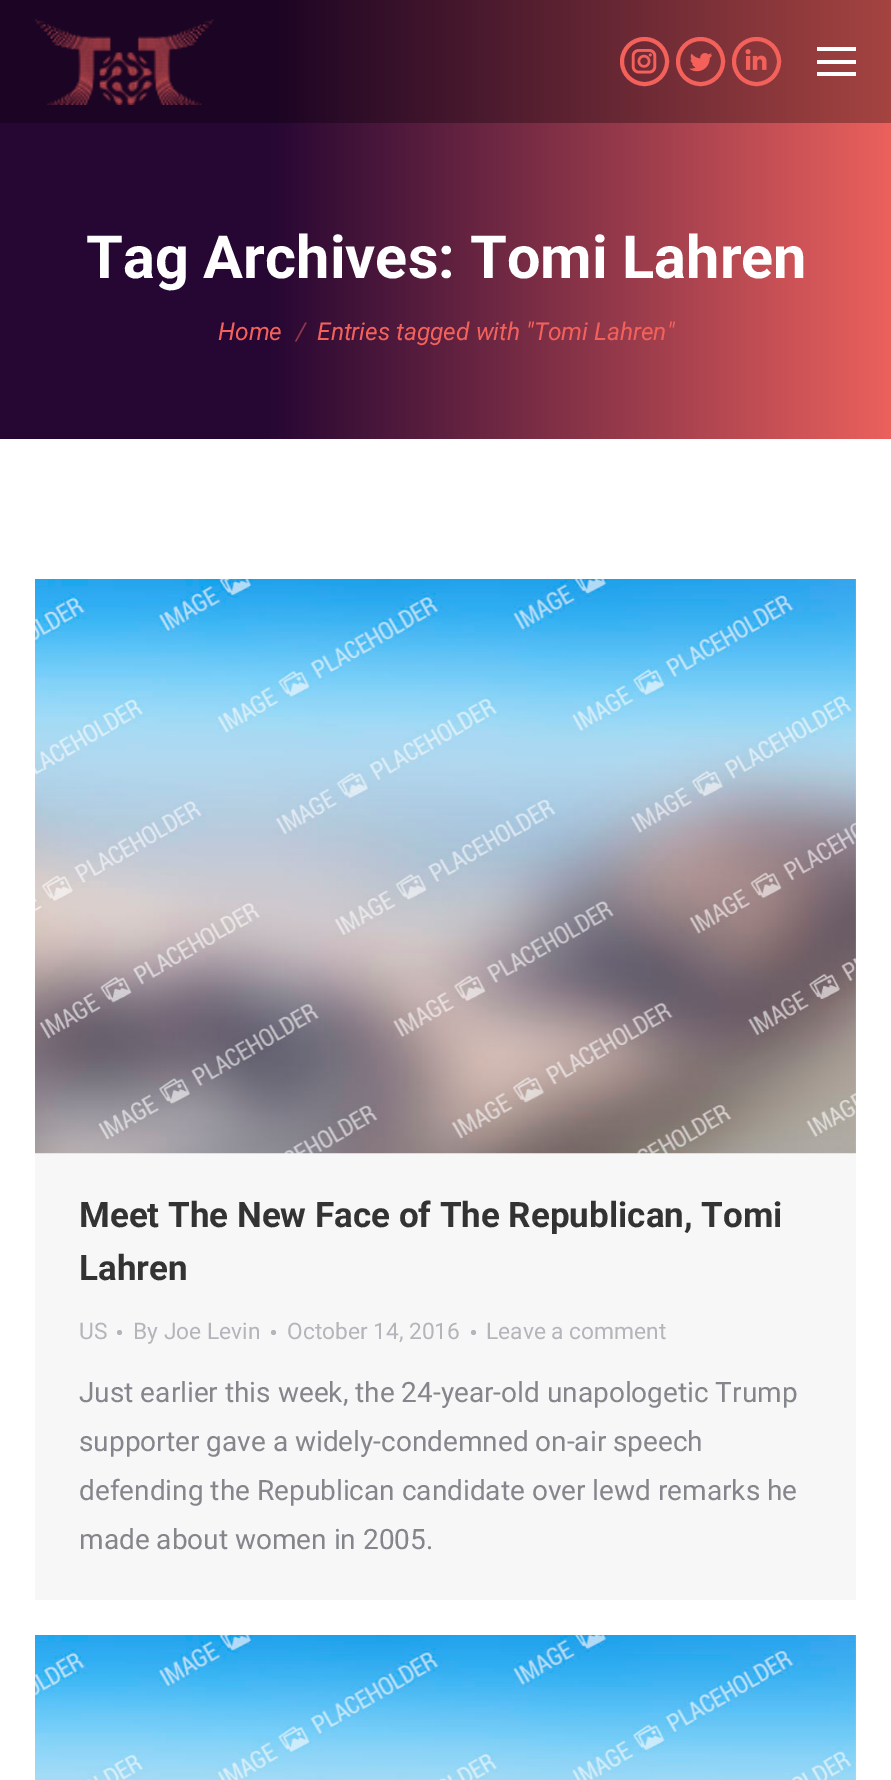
%!PS-Adobe-3.0
%%BoundingBox: 0 0 891 1780
%%LanguageLevel: 3
%%Pages: 1
%%EndComments
%%BeginProlog
/setink { 3 { 255 div 3 1 roll } repeat setrgbcolor } def
/usefont { [ exch dup neg 0 0 3 -1 roll 0 0 ] selectfont } def
/drawtext { setink usefont moveto show } def
/fillbox { setink rectfill } def
/disc { newpath 0 360 arc closepath } def
/drawimage { 5 dict begin { /h /w /y /x /name } { exch def } forall
  gsave x y translate w h scale
  w h 8 [w 0 0 h 0 0] name (r) file false 3 colorimage grestore end } def
%%EndProlog
%%BeginSetup
<< /PageSize [891 1780] >> setpagedevice
%%EndSetup
%%Page: 1 1
0 1780 translate 1 -1 scale
4 setmiterlimit
0 0 891 1780 255 255 255 fillbox
gsave 0 0 moveto 891 0 lineto 891 123 lineto 0 123 lineto closepath clip newpath
<< /ShadingType 2 /ColorSpace /DeviceRGB /Coords [0 220 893 220] /Extend [true true] /Function << /FunctionType 3 /Domain [0 1] /Functions [<< /FunctionType 2 /Domain [0 1] /C0 [0.106 0.016 0.141] /C1 [0.106 0.016 0.141] /N 1 >> << /FunctionType 2 /Domain [0 1] /C0 [0.106 0.016 0.141] /C1 [0.647 0.267 0.255] /N 1 >>] /Bounds [0.3] /Encode [0 1 0 1] >> >> shfill grestore
(assets/img1.rgb) 35 19 179 86 drawimage
243 97 90 setink
4 setlinewidth
644.5 61.5 22.5 disc stroke
(assets/img2.rgb) 631 49 26 25 drawimage
700.5 61.5 22.5 disc stroke
(assets/img3.rgb) 689 53 23 19 drawimage
756.5 61.5 22.5 disc stroke
(assets/img4.rgb) 745 49 22 21 drawimage
817 47 39 4 255 255 255 fillbox
817 60 39 4 255 255 255 fillbox
817 72 39 4 255 255 255 fillbox
gsave 0 123 moveto 891 123 lineto 891 439 lineto 0 439 lineto closepath clip newpath
<< /ShadingType 2 /ColorSpace /DeviceRGB /Coords [0 220 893 220] /Extend [true true] /Function << /FunctionType 3 /Domain [0 1] /Functions [<< /FunctionType 2 /Domain [0 1] /C0 [0.149 0.024 0.2] /C1 [0.149 0.024 0.2] /N 1 >> << /FunctionType 2 /Domain [0 1] /C0 [0.149 0.024 0.2] /C1 [0.925 0.38 0.365] /N 1 >>] /Bounds [0.3] /Encode [0 1 0 1] >> >> shfill grestore
(Tag Archives: Tomi Lahren) 86 278 /Roboto-Bold 59.5 255 255 255 drawtext
(Home) 218 340 /Roboto-Italic 24.5 243 97 90 drawtext
(/) 296 340 /Roboto-Italic 24.5 146 54 72 drawtext
(Entries tagged with "Tomi Lahren") 317 340 /Roboto-Italic 24.5 243 97 90 drawtext
35 579 821 1021 247 247 247 fillbox
(assets/img5.rgb) 35 579 821 575 drawimage
(Meet The New Face of The Republican, Tomi) 79 1227 /Roboto-Bold 35 51 51 51 drawtext
(Lahren) 79 1280 /Roboto-Bold 35 51 51 51 drawtext
(US) 79 1339 /Roboto-Regular 22.75 180 181 187 drawtext
119.5 1332.5 2.5 disc fill
(By Joe Levin) 133 1339 /Roboto-Regular 22.75 180 181 187 drawtext
273.5 1332.5 2.5 disc fill
(October 14, 2016) 287 1339 /Roboto-Regular 22.75 180 181 187 drawtext
473.5 1332.5 2.5 disc fill
(Leave a comment) 486 1339 /Roboto-Regular 22.75 180 181 187 drawtext
(Just earlier this week, the 24-year-old unapologetic Trump) 79 1402 /Roboto-Regular 28 133 134 140 drawtext
(supporter gave a widely-condemned on-air speech) 79 1451 /Roboto-Regular 28 133 134 140 drawtext
(defending the Republican candidate over lewd remarks he) 79 1500 /Roboto-Regular 28 133 134 140 drawtext
(made about women in 2005.) 79 1549 /Roboto-Regular 28 133 134 140 drawtext
(assets/img6.rgb) 35 1635 821 145 drawimage
showpage
%%EOF
